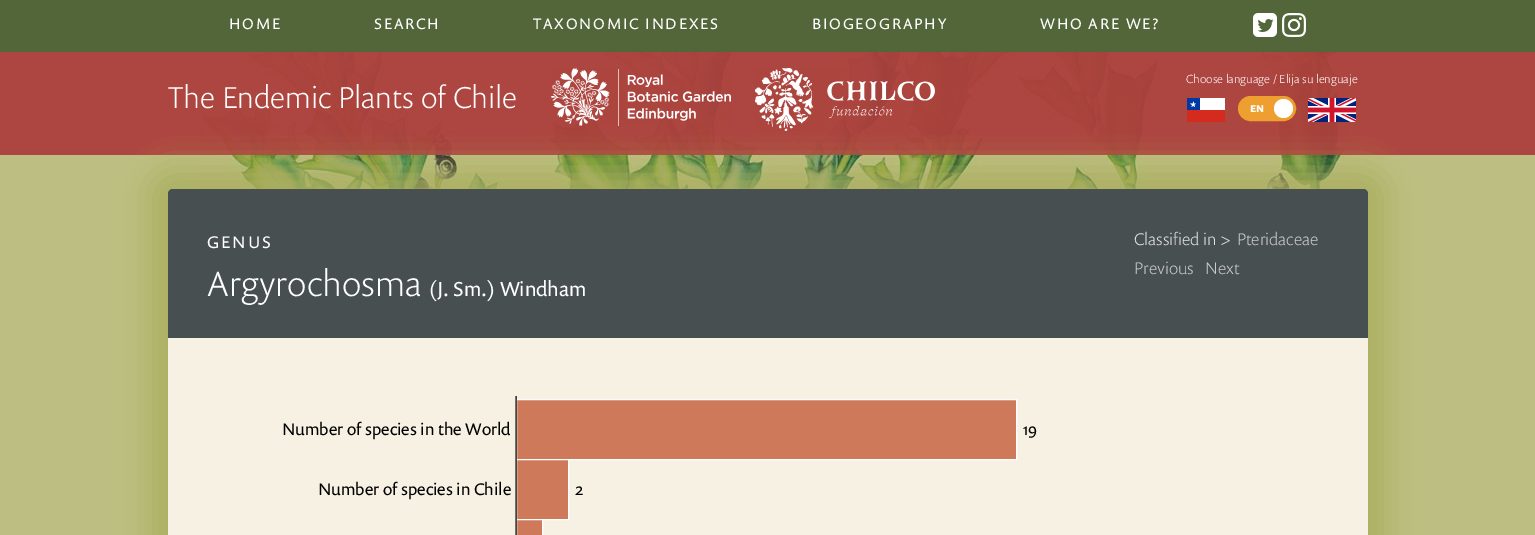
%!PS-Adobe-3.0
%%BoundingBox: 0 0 1535 535
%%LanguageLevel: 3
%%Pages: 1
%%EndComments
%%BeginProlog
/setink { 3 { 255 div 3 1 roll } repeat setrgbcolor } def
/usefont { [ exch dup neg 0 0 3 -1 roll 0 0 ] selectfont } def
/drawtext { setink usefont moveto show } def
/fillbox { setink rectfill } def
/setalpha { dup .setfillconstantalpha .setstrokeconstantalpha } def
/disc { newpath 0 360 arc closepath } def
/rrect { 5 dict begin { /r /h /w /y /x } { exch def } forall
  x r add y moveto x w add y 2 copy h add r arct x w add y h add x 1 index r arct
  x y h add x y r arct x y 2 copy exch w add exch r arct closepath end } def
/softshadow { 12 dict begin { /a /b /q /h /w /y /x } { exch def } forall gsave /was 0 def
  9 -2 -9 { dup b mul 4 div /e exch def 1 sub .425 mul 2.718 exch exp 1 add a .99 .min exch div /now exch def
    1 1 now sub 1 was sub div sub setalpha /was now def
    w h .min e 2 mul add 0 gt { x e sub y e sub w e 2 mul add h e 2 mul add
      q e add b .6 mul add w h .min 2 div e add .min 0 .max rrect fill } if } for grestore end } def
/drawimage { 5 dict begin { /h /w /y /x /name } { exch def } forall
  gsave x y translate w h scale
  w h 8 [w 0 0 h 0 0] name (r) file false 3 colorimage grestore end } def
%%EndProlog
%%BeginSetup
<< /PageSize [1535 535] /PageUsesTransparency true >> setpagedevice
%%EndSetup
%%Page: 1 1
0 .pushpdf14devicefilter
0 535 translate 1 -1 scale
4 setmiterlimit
0 0 1535 535 188 191 129 fillbox
(assets/img1.rgb) 200 52 1152 137 drawimage
0 0 1535 52 82 102 58 fillbox
/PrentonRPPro-Regular 15.25 usefont
255 255 255 setink
229 29 moveto 1.8 0 (HOME) ashow
374 29 moveto 1.8 0 (SEARCH) ashow
533 29 moveto 1.8 0 (TAXONOMIC INDEXES) ashow
812 29 moveto 1.8 0 (BIOGEOGRAPHY) ashow
1040 29 moveto 1.8 0 (WHO ARE WE?) ashow
(assets/img2.rgb) 1253 13 24 24 drawimage
(assets/img3.rgb) 1282 13 24 24 drawimage
0.95 setalpha
0 52 1535 103 172 63 60 fillbox
1 setalpha
(Choose language / Elija su lenguaje) 1186 83 /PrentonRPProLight-Light 11.9 255 255 255 drawtext
1187 98 13 12 0 57 166 fillbox
1200 98 25 12 255 255 255 fillbox
1191.5 107 moveto 1193.5 101.5 lineto 1195 107 lineto 1190 103.5 lineto 1196 103.5 lineto fill
1187 110 38 12 213 43 30 fillbox
239 158 48 setink
1239 97 56 23 11.5 rrect gsave fill grestore
2 setlinewidth
stroke
(assets/img4.rgb) 1250 105 14 7 drawimage
255 255 255 setink
1283.5 108.5 9.5 disc fill
(assets/img5.rgb) 1308 98 48 24 drawimage
(The Endemic Plants of Chile) 168 108 /PrentonRPProLight-Light 30.6 255 255 255 drawtext
(assets/img6.rgb) 551 68 180 58 drawimage
(assets/img7.rgb) 755 68 180 63 drawimage
170 174 95 setink
148 169 1240 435 24 15 0.9 softshadow
247 241 228 setink
168 189 1200 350 4 rrect fill
71 79 81 setink
172 189 moveto 1364 189 lineto 1366 189 1368 191 1368 193 curveto 1368 338 lineto 168 338 lineto 168 193 lineto 168 191 170 189 172 189 curveto closepath fill
/PrentonRPPro-Regular 17 usefont
255 255 255 setink
207 248 moveto 2 0 (GENUS) ashow
(Classified in >) 1134 245 /PrentonRPProLight-Light 17 229 229 229 drawtext
(Pteridaceae) 1237 245 /PrentonRPProLight-Light 17 204 204 204 drawtext
(Previous) 1134 274 /PrentonRPProLight-Light 17 204 204 204 drawtext
(Next) 1205 274 /PrentonRPProLight-Light 17 204 204 204 drawtext
(Argyrochosma) 207 296 /PrentonRPProLight-Light 35.75 255 255 255 drawtext
(\(J. Sm.\) Windham) 429 296 /PrentonRPPro-Regular 20.5 255 255 255 drawtext
(Number of species in the World) 282 435 /PrentonRPPro-Regular 17 0 0 0 drawtext
205 121 90 setink
516.5 399.5 moveto 1016.5 399.5 lineto 1016.5 459.5 lineto 516.5 459.5 lineto closepath gsave fill grestore
255 255 255 setink
1 setlinewidth
stroke
(19) 1023 435 /PrentonRPPro-Regular 17 0 0 0 drawtext
(Number of species in Chile) 318 495 /PrentonRPPro-Regular 17 0 0 0 drawtext
205 121 90 setink
516.5 459.5 moveto 568.5 459.5 lineto 568.5 519.5 lineto 516.5 519.5 lineto closepath gsave fill grestore
255 255 255 setink
stroke
205 121 90 setink
516.5 519.5 moveto 542.5 519.5 lineto 542.5 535.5 lineto 516.5 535.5 lineto closepath gsave fill grestore
255 255 255 setink
stroke
0 0 0 setink
516 396 moveto 516 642 lineto stroke
(2) 575 495 /PrentonRPPro-Regular 17 0 0 0 drawtext
.poppdf14devicefilter showpage
%%EOF
